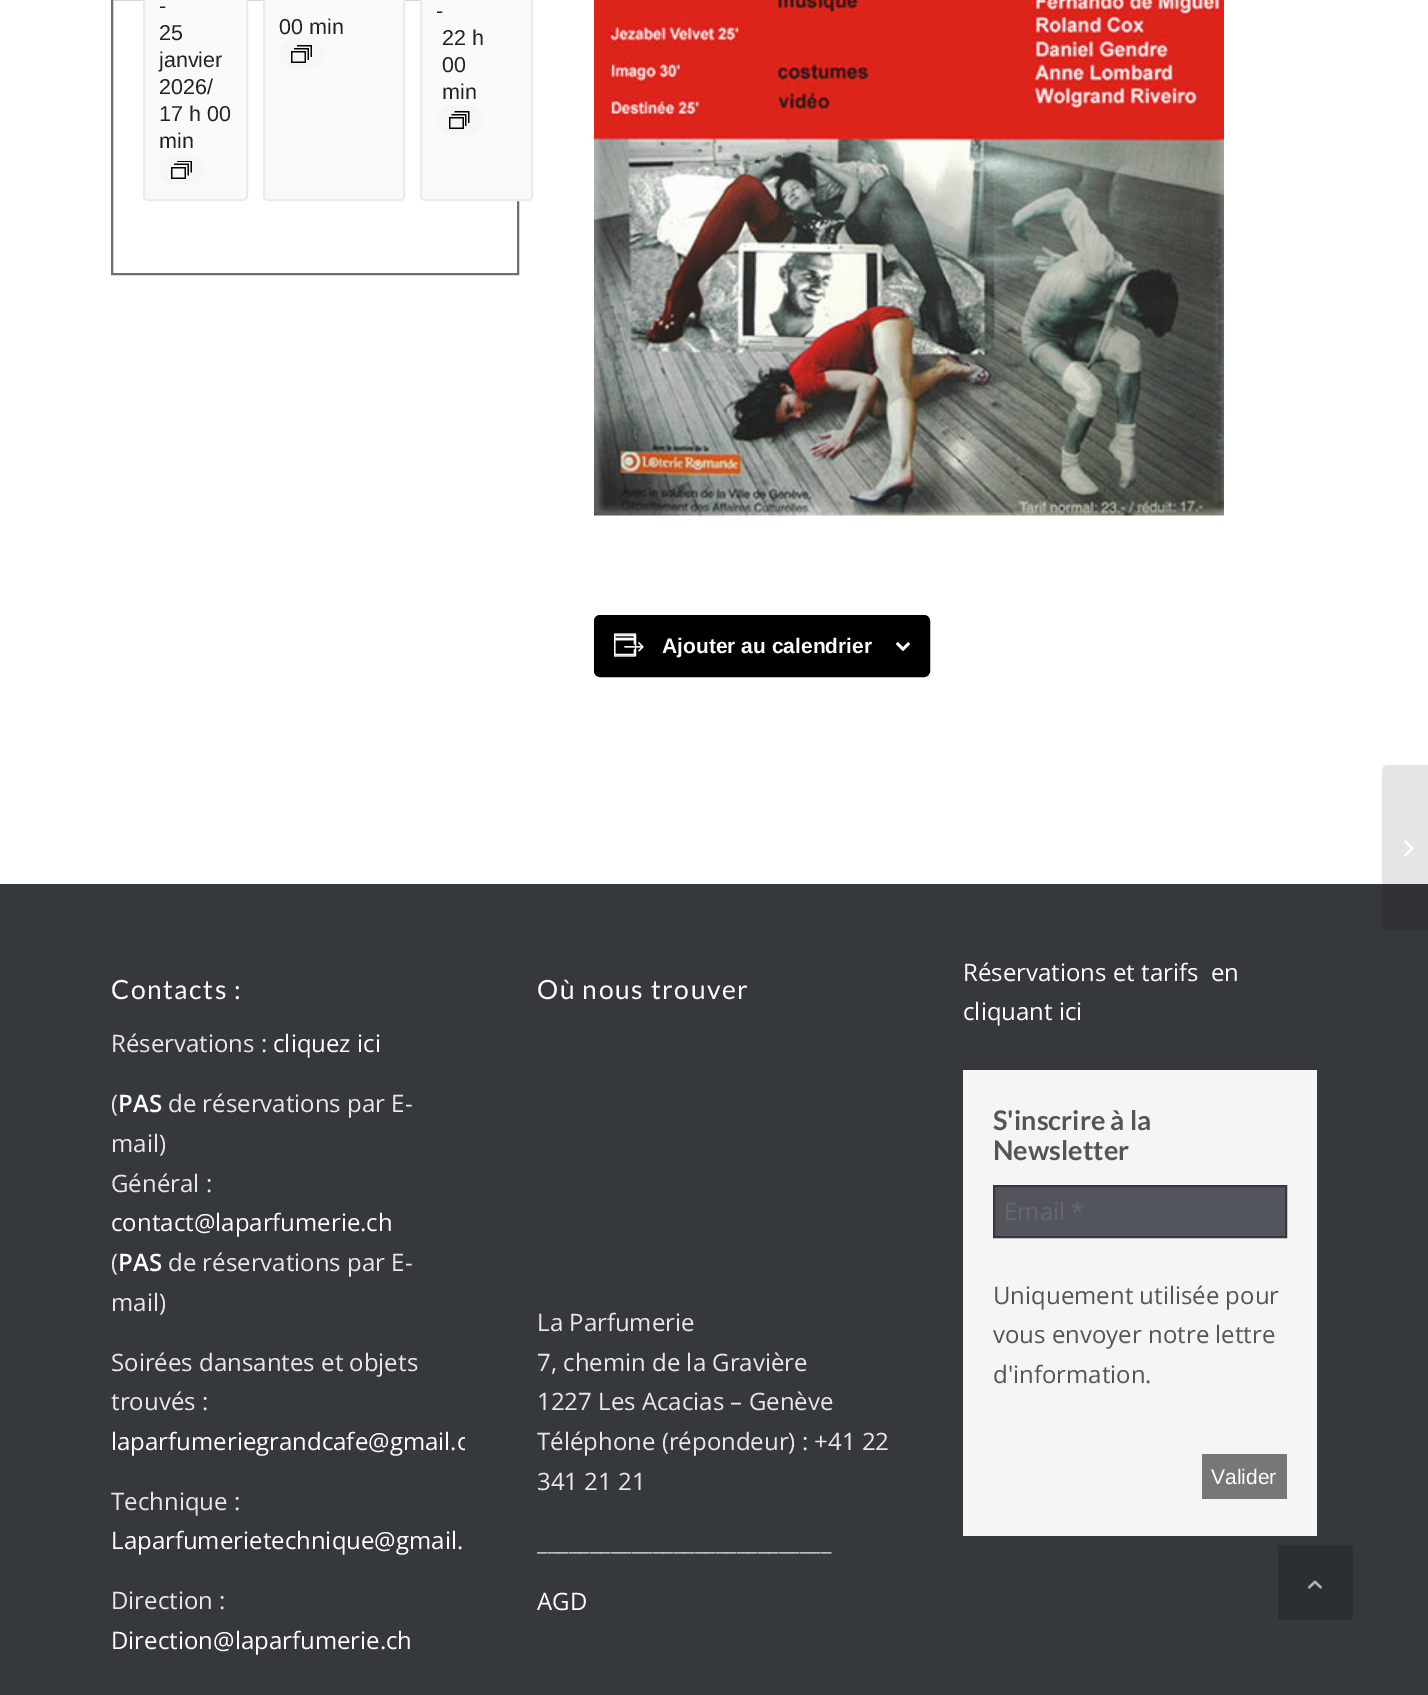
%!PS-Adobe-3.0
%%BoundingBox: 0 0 1428 1695
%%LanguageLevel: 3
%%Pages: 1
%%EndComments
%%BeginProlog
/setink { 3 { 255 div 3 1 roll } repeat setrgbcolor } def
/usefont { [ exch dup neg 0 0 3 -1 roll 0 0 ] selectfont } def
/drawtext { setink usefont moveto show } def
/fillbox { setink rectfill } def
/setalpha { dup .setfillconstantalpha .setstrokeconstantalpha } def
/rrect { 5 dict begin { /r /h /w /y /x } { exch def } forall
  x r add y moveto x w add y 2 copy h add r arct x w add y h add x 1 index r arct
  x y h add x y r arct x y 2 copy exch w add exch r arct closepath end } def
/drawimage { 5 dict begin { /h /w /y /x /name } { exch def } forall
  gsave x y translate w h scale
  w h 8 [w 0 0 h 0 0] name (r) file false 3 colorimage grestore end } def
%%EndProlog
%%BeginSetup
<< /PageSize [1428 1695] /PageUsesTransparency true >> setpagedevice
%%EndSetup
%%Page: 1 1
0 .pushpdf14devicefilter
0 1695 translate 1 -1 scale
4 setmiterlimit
0 0 1428 1695 255 255 255 fillbox
110 110 110 setink
2 setlinewidth
112 -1 406 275 rectstroke
250 250 250 setink
144 -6 103 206 4 rrect gsave fill grestore
235 235 235 setink
stroke
(-) 159 13 /LiberationSans-Regular 21.5 34 34 34 drawtext
(25) 159 40 /LiberationSans-Regular 21.5 34 34 34 drawtext
(janvier) 159 67 /LiberationSans-Regular 21.5 34 34 34 drawtext
(2026/) 159 94 /LiberationSans-Regular 21.5 34 34 34 drawtext
(17 h 00) 159 121 /LiberationSans-Regular 21.5 34 34 34 drawtext
(min) 159 148 /LiberationSans-Regular 21.5 34 34 34 drawtext
247 246 246 setink
159 155 45 30 15 rrect fill
(assets/img1.rgb) 171 161 21 18 drawimage
250 250 250 setink
264 -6 140 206 4 rrect gsave fill grestore
235 235 235 setink
stroke
(00 min) 279 34 /LiberationSans-Regular 21.5 34 34 34 drawtext
247 246 246 setink
279 39 45 30 15 rrect fill
(assets/img2.rgb) 291 45 21 18 drawimage
250 250 250 setink
421 -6 111 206 4 rrect gsave fill grestore
235 235 235 setink
stroke
(-) 436 18 /LiberationSans-Regular 21.5 34 34 34 drawtext
(22 h) 442 45 /LiberationSans-Regular 21.5 34 34 34 drawtext
(00) 442 72 /LiberationSans-Regular 21.5 34 34 34 drawtext
(min) 442 99 /LiberationSans-Regular 21.5 34 34 34 drawtext
247 246 246 setink
437 105 45 30 15 rrect fill
(assets/img3.rgb) 449 111 21 18 drawimage
(assets/img4.rgb) 594 0 630 516 drawimage
0 0 0 setink
595 616 334 60 5 rrect gsave fill grestore
stroke
(assets/img5.rgb) 614 633 30 24 drawimage
(Ajouter au calendrier) 662 653 /LiberationSans-Bold 21 255 255 255 drawtext
(assets/img6.rgb) 896 642 15 9 drawimage
0 884 1428 811 53 56 60 fillbox
/Lato-Regular 26.5 usefont
255 255 255 setink
111 999 moveto 1.5 0 (Contacts :) ashow
(Réservations :) 111 1052 /OpenSans-Regular 24 232 232 232 drawtext
(cliquez ici) 273 1052 /OpenSans-Regular 24 255 255 255 drawtext
(\() 111 1112 /OpenSans-Regular 24 232 232 232 drawtext
(PAS) 118 1112 /OpenSans-SemiBold 24 255 255 255 drawtext
(de réservations par E-) 168 1112 /OpenSans-Regular 24 232 232 232 drawtext
(mail\)) 111 1152 /OpenSans-Regular 24 232 232 232 drawtext
(Général :) 111 1192 /OpenSans-Regular 24 232 232 232 drawtext
(contact@laparfumerie.ch) 111 1231 /OpenSans-Regular 24 255 255 255 drawtext
(\() 111 1271 /OpenSans-Regular 24 232 232 232 drawtext
(PAS) 118 1271 /OpenSans-SemiBold 24 255 255 255 drawtext
(de réservations par E-) 168 1271 /OpenSans-Regular 24 232 232 232 drawtext
(mail\)) 111 1311 /OpenSans-Regular 24 232 232 232 drawtext
(Soirées dansantes et objets) 111 1371 /OpenSans-Regular 24 232 232 232 drawtext
(trouvés :) 111 1410 /OpenSans-Regular 24 232 232 232 drawtext
gsave
111 953 354 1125 rectclip
(laparfumeriegrandcafe@gmail.c) 111 1450 /OpenSans-Regular 24 255 255 255 drawtext
grestore
(Technique :) 111 1510 /OpenSans-Regular 24 232 232 232 drawtext
(Laparfumerietechnique@gmail.) 111 1549 /OpenSans-Regular 24 255 255 255 drawtext
(Direction :) 111 1609 /OpenSans-Regular 24 232 232 232 drawtext
(Direction@laparfumerie.ch) 111 1649 /OpenSans-Regular 24 255 255 255 drawtext
/Lato-Regular 26.5 usefont
537 999 moveto 1.5 0 (Où nous trouver) ashow
(La Parfumerie) 537 1331 /OpenSans-Regular 24 232 232 232 drawtext
(7, chemin de la Gravière) 537 1371 /OpenSans-Regular 24 232 232 232 drawtext
(1227 Les Acacias – Genève) 537 1410 /OpenSans-Regular 24 232 232 232 drawtext
(Téléphone \(répondeur\) : +41 22) 537 1450 /OpenSans-Regular 24 232 232 232 drawtext
(341 21 21) 537 1490 /OpenSans-Regular 24 232 232 232 drawtext
(____________________________) 537 1550 /OpenSans-Regular 24 232 232 232 drawtext
(AGD) 537 1610 /OpenSans-Regular 24 255 255 255 drawtext
(Réservations et tarifs  en) 963 981 /OpenSans-Regular 24 255 255 255 drawtext
(cliquant ici) 963 1020 /OpenSans-Regular 24 255 255 255 drawtext
963 1070 354 466 245 245 245 fillbox
(S'inscrire à la) 993 1130 /Lato-Bold 27 85 85 85 drawtext
(Newsletter) 993 1160 /Lato-Bold 27 85 85 85 drawtext
82 86 92 setink
994 1186 moveto 1286 1186 lineto 1286 1237 lineto 994 1237 lineto closepath gsave fill grestore
53 56 60 setink
stroke
(Email *) 1004 1220 /OpenSans-Regular 24 101 103 106 drawtext
(Uniquement utilisée pour) 993 1304 /OpenSans-Regular 24 85 85 85 drawtext
(vous envoyer notre lettre) 993 1343 /OpenSans-Regular 24 85 85 85 drawtext
(d'information.) 993 1383 /OpenSans-Regular 24 85 85 85 drawtext
1202 1454 85 45 119 119 119 fillbox
(Valider) 1211 1484 /LiberationSans-Regular 21 255 255 255 drawtext
0.1 setalpha
0 0 0 setink
1388 765 moveto 1428 765 lineto 1428 930 lineto 1388 930 lineto 1384.5 930 1382 927.5 1382 924 curveto 1382 771 lineto 1382 767.5 1384.5 765 1388 765 curveto closepath fill
1 setalpha
(assets/img7.rgb) 1404 840 10 17 drawimage
44 47 50 setink
1278 1545 75 75 3 rrect fill
(assets/img8.rgb) 1308 1580 14 9 drawimage
.poppdf14devicefilter showpage
%%EOF
